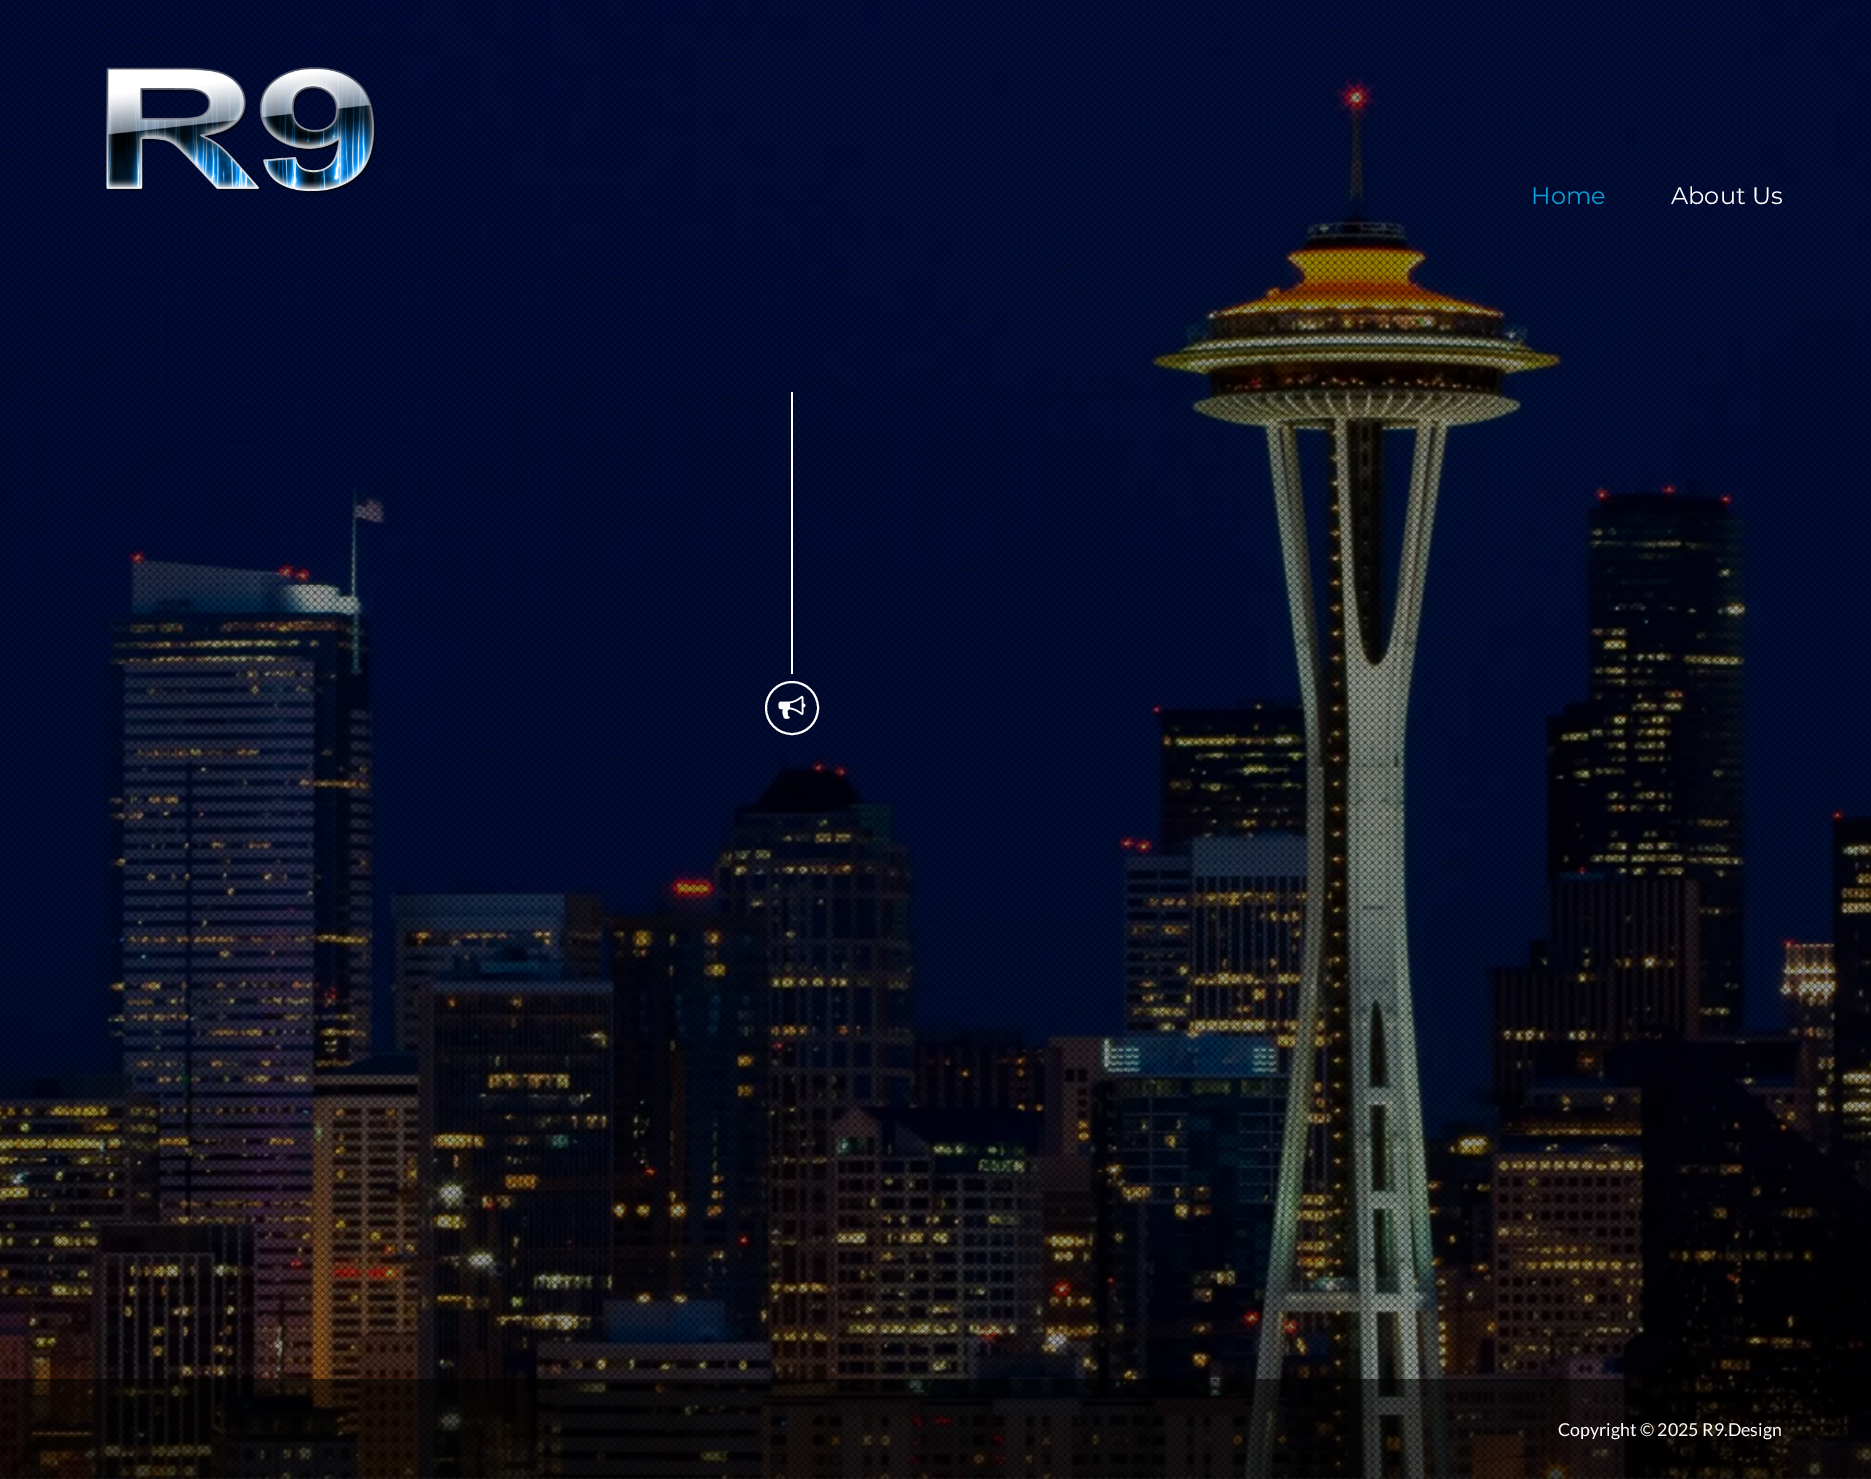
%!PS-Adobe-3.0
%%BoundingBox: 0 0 1871 1479
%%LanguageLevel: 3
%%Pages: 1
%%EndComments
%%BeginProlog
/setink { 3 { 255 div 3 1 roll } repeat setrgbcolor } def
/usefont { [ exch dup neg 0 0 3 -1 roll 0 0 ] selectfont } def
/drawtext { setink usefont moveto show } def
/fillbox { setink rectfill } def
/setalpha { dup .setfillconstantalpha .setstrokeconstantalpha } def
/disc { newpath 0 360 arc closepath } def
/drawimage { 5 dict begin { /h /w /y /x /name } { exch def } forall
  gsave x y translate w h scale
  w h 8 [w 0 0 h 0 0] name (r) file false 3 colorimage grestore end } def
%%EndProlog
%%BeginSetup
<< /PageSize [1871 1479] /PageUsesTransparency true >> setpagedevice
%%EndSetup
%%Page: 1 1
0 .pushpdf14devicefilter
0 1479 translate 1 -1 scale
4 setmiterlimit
0 0 1871 1479 255 255 255 fillbox
(assets/img1.rgb) 0 0 1871 1479 drawimage
(assets/img2.rgb) 0 0 1871 1479 drawimage
(assets/img3.rgb) 106 67 271 127 drawimage
(Home) 1531 204 /Montserrat-Regular 24 10 159 216 drawtext
(About Us) 1671 204 /Montserrat-Regular 24 255 255 255 drawtext
791 392 2 282 255 255 255 fillbox
2 setlinewidth
792 708 26 disc stroke
(assets/img4.rgb) 778 695 28 24 drawimage
0.6 setalpha
0 1379 1871 100 0 0 0 fillbox
1 setalpha
(Copyright © 2025 R9.Design) 1558 1436 /Lato-Regular 17.8 255 255 255 drawtext
.poppdf14devicefilter showpage
%%EOF
